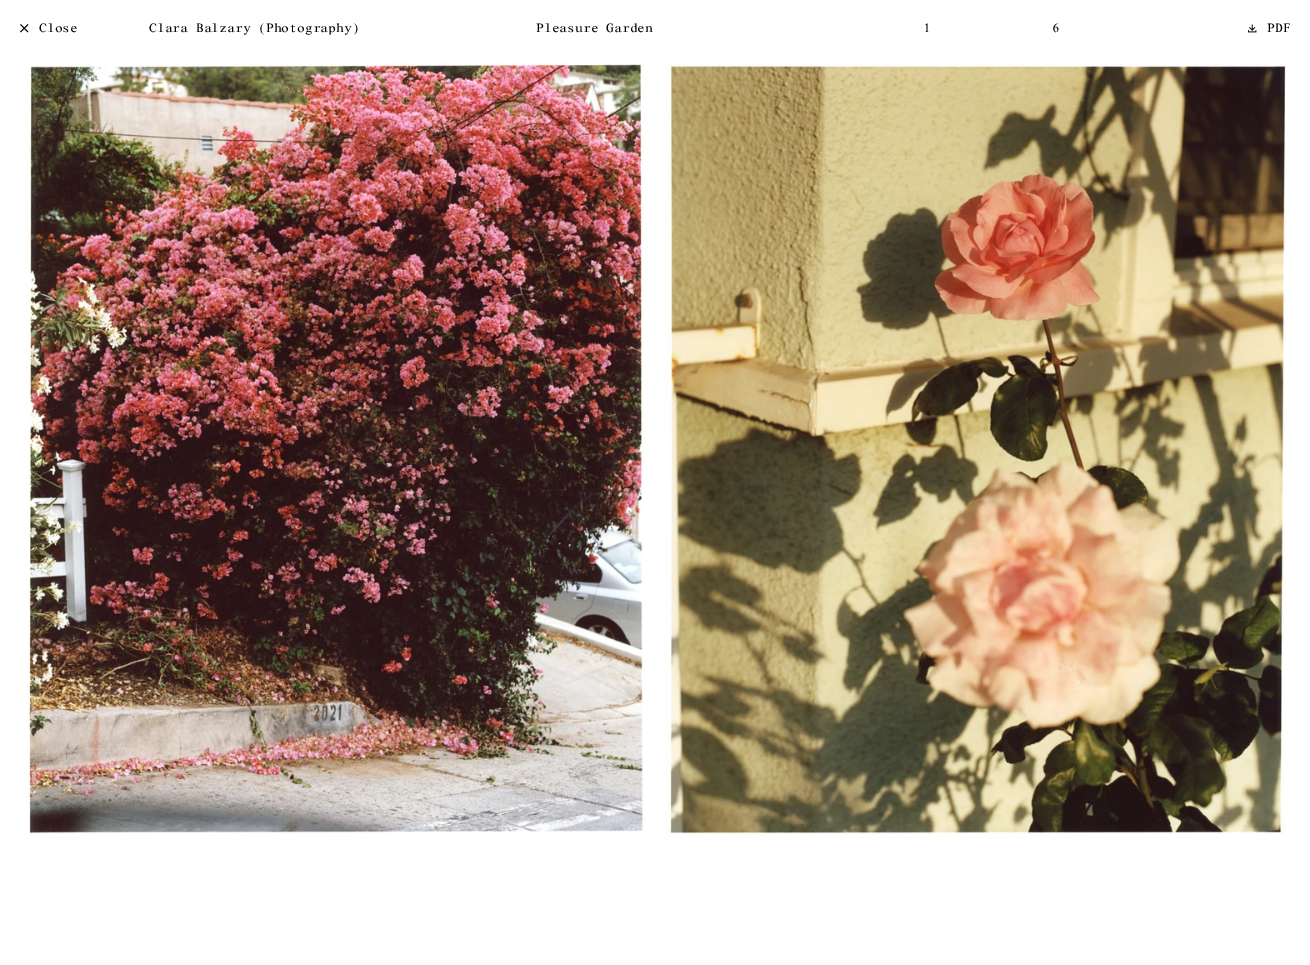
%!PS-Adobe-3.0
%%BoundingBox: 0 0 1310 965
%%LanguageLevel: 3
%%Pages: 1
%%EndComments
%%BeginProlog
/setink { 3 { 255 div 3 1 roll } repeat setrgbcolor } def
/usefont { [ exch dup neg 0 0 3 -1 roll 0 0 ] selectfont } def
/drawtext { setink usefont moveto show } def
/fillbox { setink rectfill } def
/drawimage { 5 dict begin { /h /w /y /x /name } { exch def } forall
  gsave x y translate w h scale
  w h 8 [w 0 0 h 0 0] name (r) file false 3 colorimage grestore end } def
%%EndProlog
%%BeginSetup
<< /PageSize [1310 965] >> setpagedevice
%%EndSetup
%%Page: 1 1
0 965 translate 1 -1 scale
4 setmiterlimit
0 0 1310 965 255 255 255 fillbox
0 0 0 setink
28 32 moveto 20.5 24.5 lineto 20.5 32 moveto 28 24.5 lineto stroke
(Close) 39 32 /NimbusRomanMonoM-Regular 13 0 0 0 drawtext
(Clara Balzary \(Photography\)) 149 32 /NimbusRomanMonoM-Regular 13 0 0 0 drawtext
(Pleasure Garden) 536 32 /NimbusRomanMonoM-Regular 13 0 0 0 drawtext
(1) 923 32 /NimbusRomanMonoM-Regular 13 0 0 0 drawtext
(6) 1052 32 /NimbusRomanMonoM-Regular 13 0 0 0 drawtext
(assets/img1.rgb) 1248 24 9 9 drawimage
(PDF) 1267 32 /NimbusRomanMonoM-Regular 13 0 0 0 drawtext
(assets/img2.rgb) 27 60 618 774 drawimage
(assets/img3.rgb) 665 63 621 772 drawimage
showpage
%%EOF
